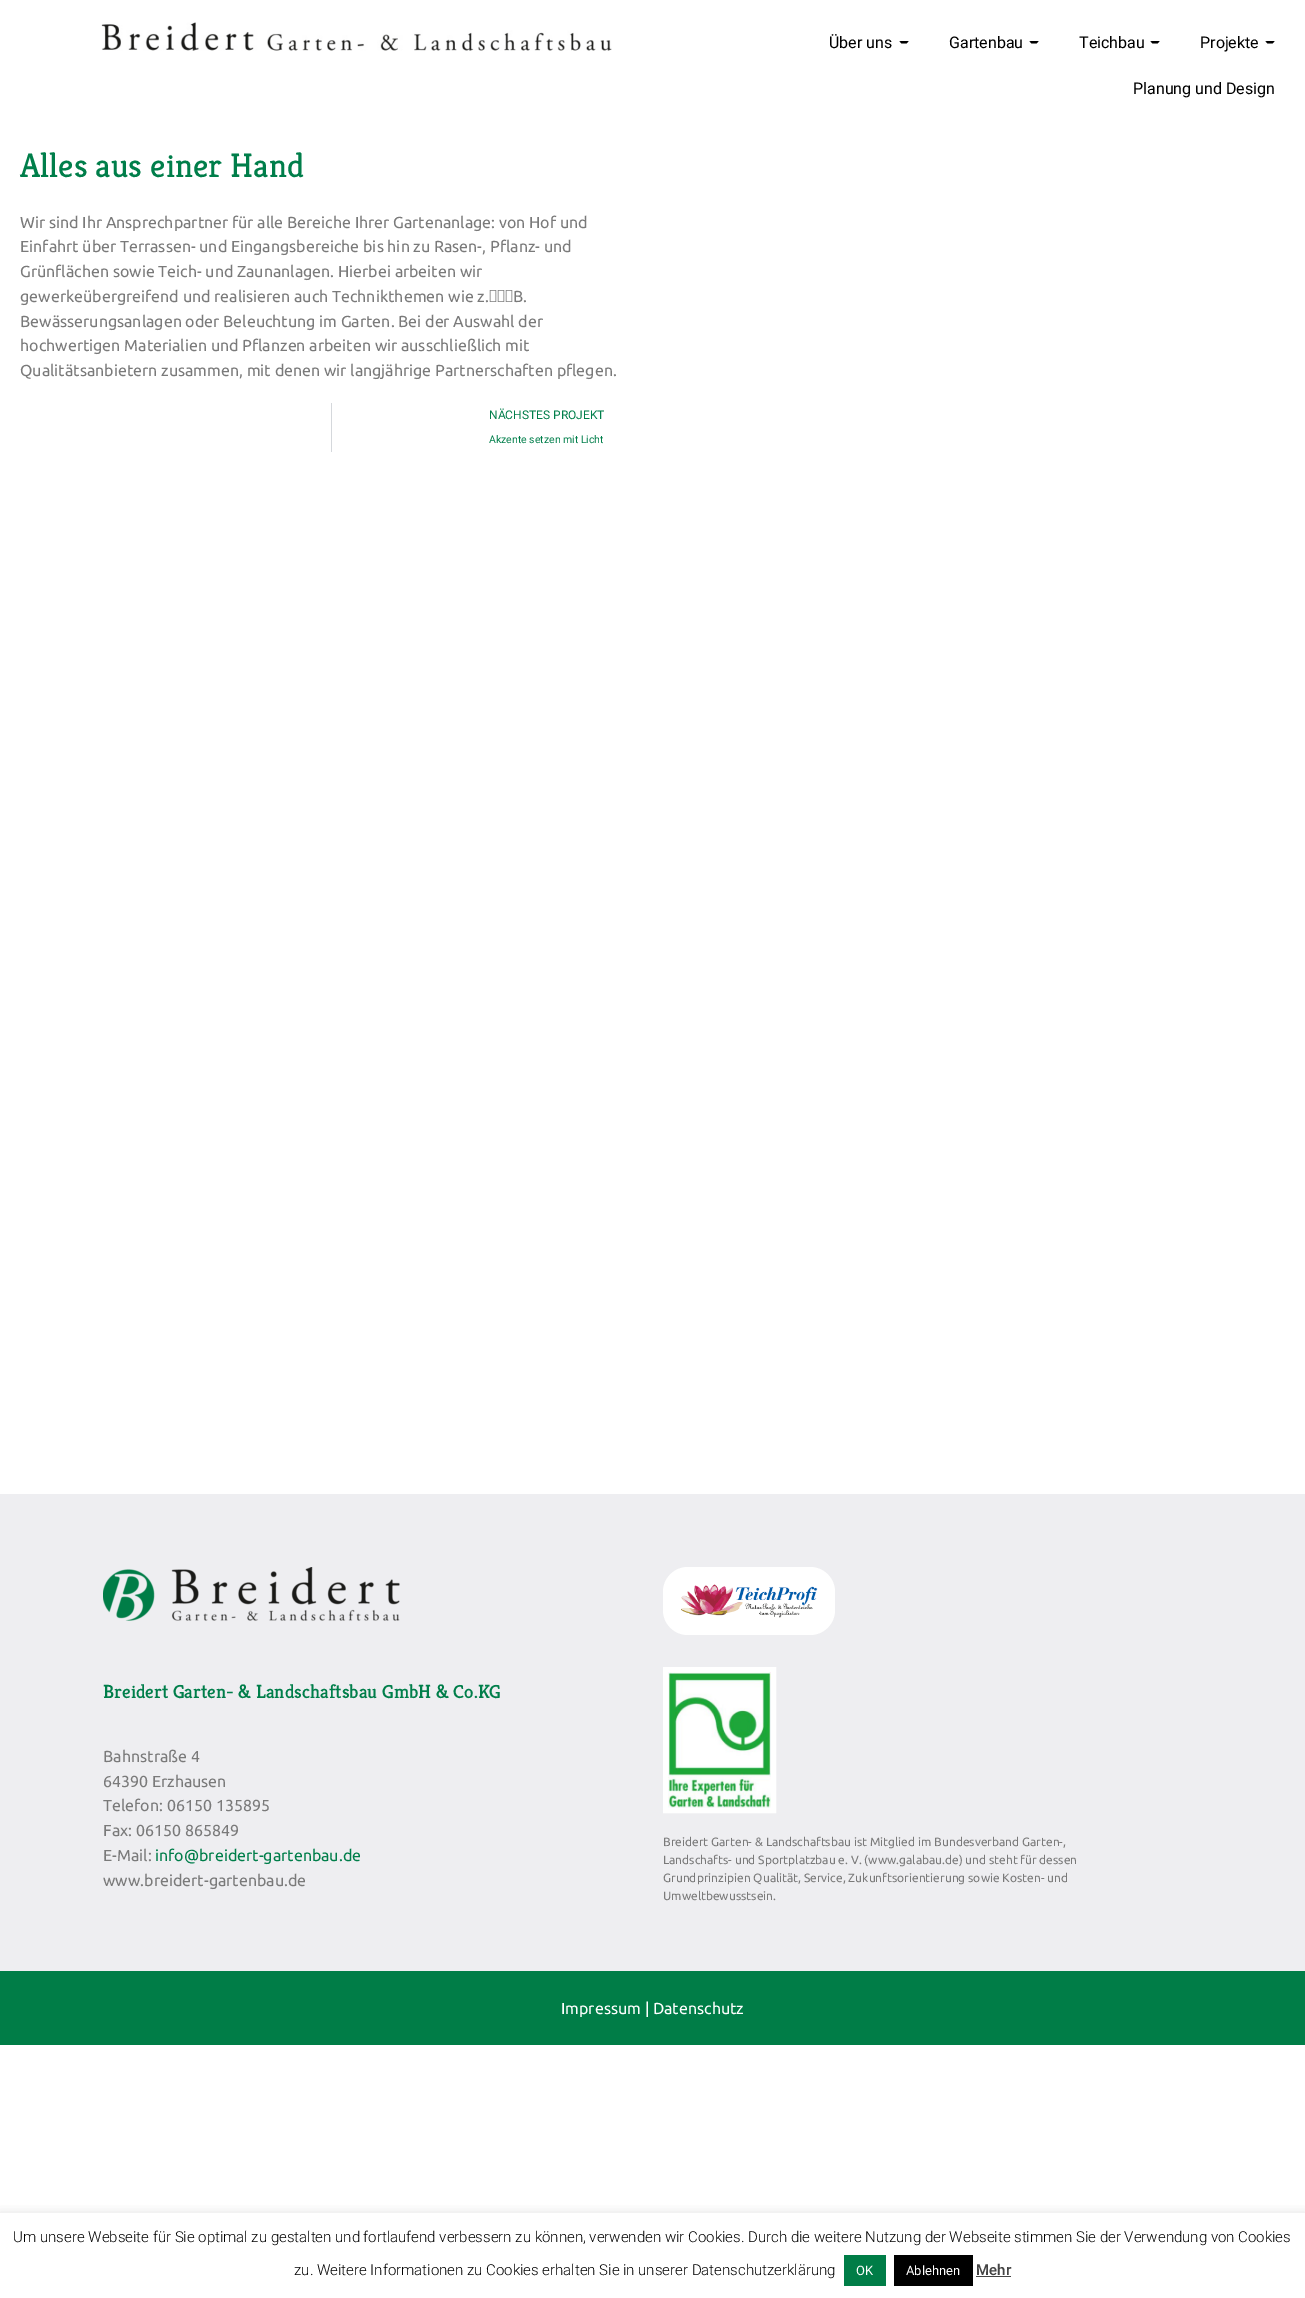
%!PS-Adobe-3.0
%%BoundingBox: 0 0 1305 2298
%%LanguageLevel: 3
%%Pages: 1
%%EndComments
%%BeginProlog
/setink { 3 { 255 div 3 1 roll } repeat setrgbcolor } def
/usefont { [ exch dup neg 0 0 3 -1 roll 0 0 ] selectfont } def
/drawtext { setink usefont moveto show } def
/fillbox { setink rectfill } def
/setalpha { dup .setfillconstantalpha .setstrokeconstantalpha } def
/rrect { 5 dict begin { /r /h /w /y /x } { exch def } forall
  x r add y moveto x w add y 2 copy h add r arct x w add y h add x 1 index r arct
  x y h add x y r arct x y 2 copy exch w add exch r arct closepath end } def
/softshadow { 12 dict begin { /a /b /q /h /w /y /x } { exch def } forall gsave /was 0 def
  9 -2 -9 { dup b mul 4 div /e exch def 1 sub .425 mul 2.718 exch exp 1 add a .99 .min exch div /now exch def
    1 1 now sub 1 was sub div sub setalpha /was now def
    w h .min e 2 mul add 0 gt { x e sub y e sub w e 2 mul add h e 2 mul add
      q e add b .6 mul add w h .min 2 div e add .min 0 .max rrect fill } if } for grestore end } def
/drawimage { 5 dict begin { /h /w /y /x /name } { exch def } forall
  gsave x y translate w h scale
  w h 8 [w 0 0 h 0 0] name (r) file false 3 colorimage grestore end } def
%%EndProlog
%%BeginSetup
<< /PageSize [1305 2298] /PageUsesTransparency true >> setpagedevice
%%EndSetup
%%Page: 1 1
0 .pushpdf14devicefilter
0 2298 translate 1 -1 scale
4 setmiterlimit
0 0 1305 2298 255 255 255 fillbox
(assets/img1.rgb) 101 22 511 29 drawimage
(Über uns) 829 48 /Roboto-Regular 16 0 0 0 drawtext
901 41 moveto 899.5 41.5 lineto 901.5 43.5 lineto 906.5 43.5 lineto 908.5 41.5 lineto 908 41 lineto closepath fill
(Gartenbau) 949 48 /Roboto-Regular 16 0 0 0 drawtext
1031 41 moveto 1029.5 41.5 lineto 1031.5 43.5 lineto 1036.5 43.5 lineto 1038.5 41.5 lineto 1038 41 lineto closepath fill
(Teichbau) 1079 48 /Roboto-Regular 16 0 0 0 drawtext
1152 41 moveto 1150.5 41.5 lineto 1152.5 43.5 lineto 1157.5 43.5 lineto 1159.5 41.5 lineto 1159 41 lineto closepath fill
(Projekte) 1200 48 /Roboto-Regular 16 0 0 0 drawtext
1267 41 moveto 1265.5 41.5 lineto 1267.5 43.5 lineto 1272.5 43.5 lineto 1274.5 41.5 lineto 1274 41 lineto closepath fill
(Planung und Design) 1133 94 /Roboto-Regular 16 0 0 0 drawtext
(Alles aus einer Hand) 20 177 /Kreon-Regular 34 0 126 74 drawtext
(Wir sind Ihr Ansprechpartner für alle Bereiche Ihrer Gartenanlage: von Hof und) 20 228 /Ubuntu-Regular 16 122 122 122 drawtext
(Einfahrt über Terrassen- und Eingangsbereiche bis hin zu Rasen-, Pflanz- und) 20 252 /Ubuntu-Regular 16 122 122 122 drawtext
(Grünflächen sowie Teich- und Zaunanlagen. Hierbei arbeiten wir) 20 277 /Ubuntu-Regular 16 122 122 122 drawtext
(gewerkeübergreifend und realisieren auch Technikthemen wie z. B.) 20 302 /Ubuntu-Regular 16 122 122 122 drawtext
(Bewässerungsanlagen oder Beleuchtung im Garten. Bei der Auswahl der) 20 327 /Ubuntu-Regular 16 122 122 122 drawtext
(hochwertigen Materialien und Pflanzen arbeiten wir ausschließlich mit) 20 351 /Ubuntu-Regular 16 122 122 122 drawtext
(Qualitätsanbietern zusammen, mit denen wir langjährige Partnerschaften pflegen.) 20 376 /Ubuntu-Regular 16 122 122 122 drawtext
331 403 1 49 213 216 220 fillbox
(NÄCHSTES PROJEKT) 489 419 /Roboto-Regular 12 0 126 74 drawtext
(Akzente setzen mit Licht) 489 443 /Roboto-Regular 10.5 0 126 74 drawtext
0 1494 1305 477 238 238 241 fillbox
(assets/img2.rgb) 103 1567 297 54 drawimage
(Breidert Garten- & Landschaftsbau GmbH & Co.KG) 103 1698 /Kreon-Medium 19 0 126 74 drawtext
(Bahnstraße 4) 103 1762 /Ubuntu-Regular 16 122 122 122 drawtext
(64390 Erzhausen) 103 1787 /Ubuntu-Regular 16 122 122 122 drawtext
(Telefon: 06150 135895) 103 1811 /Ubuntu-Regular 16 122 122 122 drawtext
(Fax: 06150 865849) 103 1836 /Ubuntu-Regular 16 122 122 122 drawtext
(E-Mail:) 103 1861 /Ubuntu-Regular 16 122 122 122 drawtext
(info@breidert-gartenbau.de) 155 1861 /Ubuntu-Regular 16 0 126 74 drawtext
(www.breidert-gartenbau.de) 103 1886 /Ubuntu-Regular 16 122 122 122 drawtext
255 255 255 setink
663 1567 172 68 25 rrect fill
(assets/img3.rgb) 681 1584 137 34 drawimage
5 setlinewidth
665.5 1669.5 108 141 rectstroke
(assets/img4.rgb) 668 1672 103 136 drawimage
(Breidert Garten- & Landschaftsbau ist Mitglied im Bundesverband Garten-,) 663 1846 /Ubuntu-Regular 12 122 122 122 drawtext
(Landschafts- und Sportplatzbau e. V. \(www.galabau.de\) und steht für dessen) 663 1864 /Ubuntu-Regular 12 122 122 122 drawtext
(Grundprinzipien Qualität, Service, Zukunftsorientierung sowie Kosten- und) 663 1882 /Ubuntu-Regular 12 122 122 122 drawtext
(Umweltbewusstsein.) 663 1900 /Ubuntu-Regular 12 122 122 122 drawtext
0 1971 1305 74 0 125 71 fillbox
(Impressum | Datenschutz) 561 2014 /Ubuntu-Regular 16 255 255 255 drawtext
gsave
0 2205 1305 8 rectclip
172 171 171 setink
0 2212 1305 85 0 5 0.3 softshadow
grestore
(Um unsere Webseite für Sie optimal zu gestalten und fortlaufend verbessern zu können, verwenden wir Cookies. Durch die weitere Nutzung der Webseite stimmen Sie der Verwendung von Cookies) 13 2242 /Roboto-Light 15 0 0 0 drawtext
(zu. Weitere Informationen zu Cookies erhalten Sie in unserer Datenschutzerklärung) 294 2275 /Roboto-Light 15 0 0 0 drawtext
844 2255 42 31 0 125 71 fillbox
(OK) 856 2275 /Roboto-Regular 13 255 255 255 drawtext
894 2255 79 31 0 0 0 fillbox
(Ablehnen) 906 2275 /Roboto-Regular 13 255 255 255 drawtext
(Mehr) 976 2275 /Roboto-Medium 15 68 68 68 drawtext
976 2276 35 1 68 68 68 fillbox
.poppdf14devicefilter showpage
%%EOF
